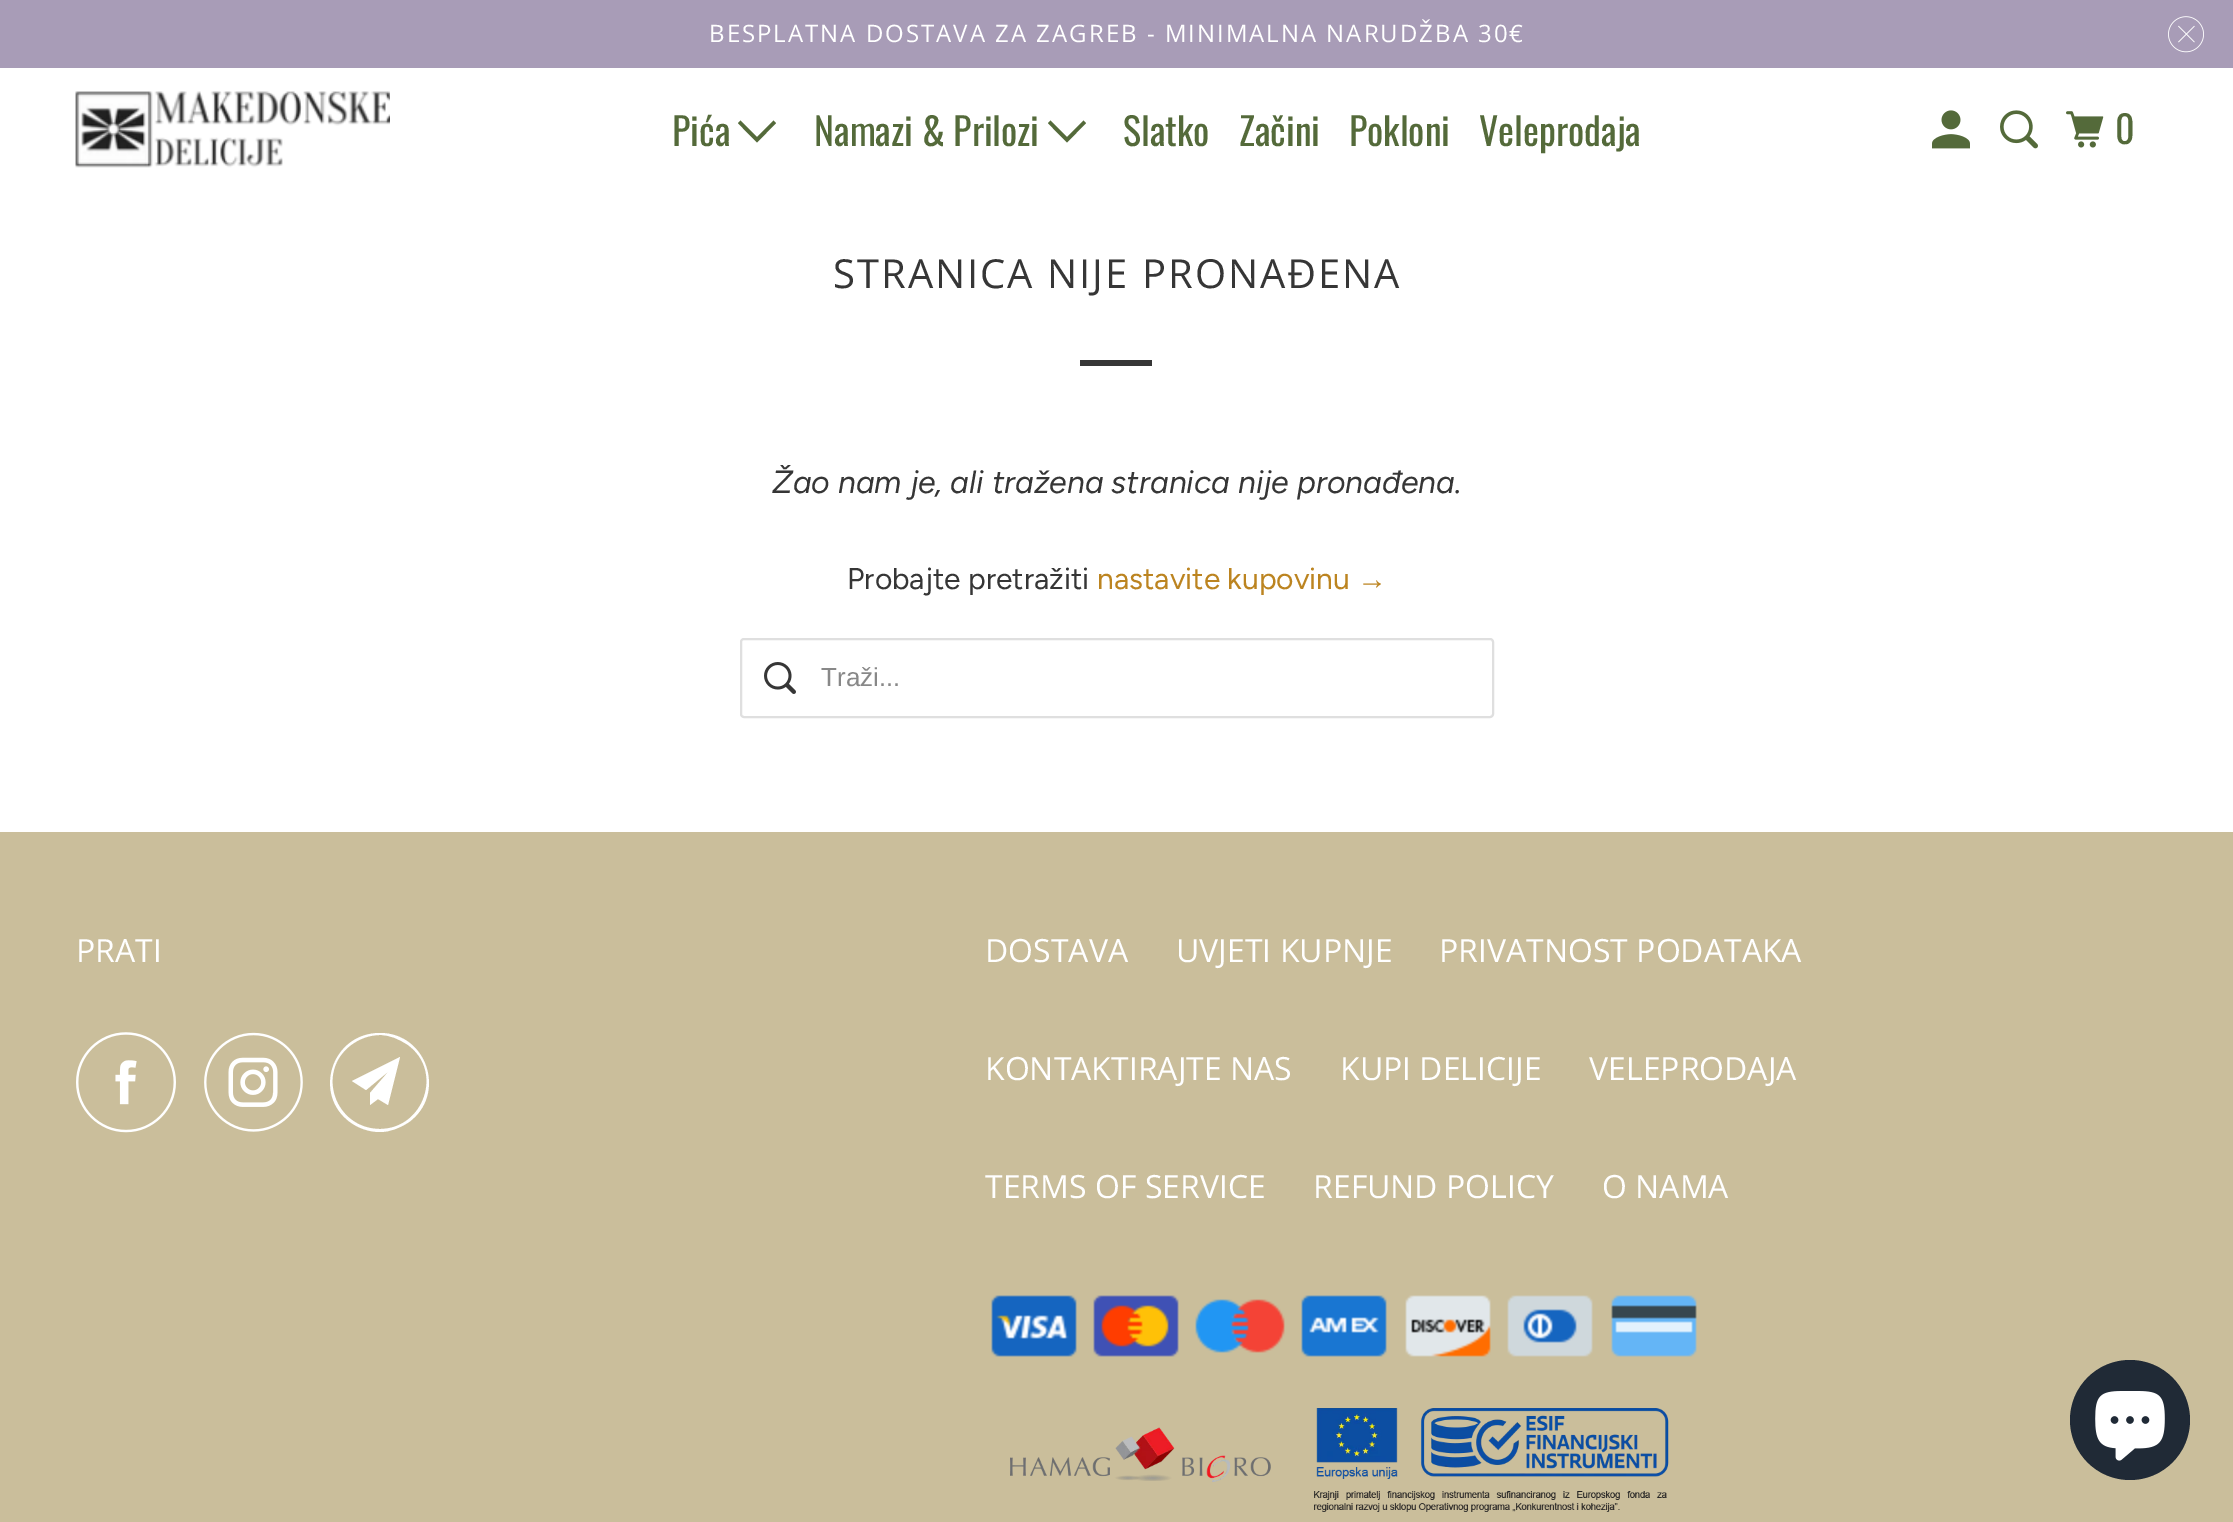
%!PS-Adobe-3.0
%%BoundingBox: 0 0 2233 1522
%%LanguageLevel: 3
%%Pages: 1
%%EndComments
%%BeginProlog
/setink { 3 { 255 div 3 1 roll } repeat setrgbcolor } def
/usefont { [ exch dup neg 0 0 3 -1 roll 0 0 ] selectfont } def
/drawtext { setink usefont moveto show } def
/fillbox { setink rectfill } def
/disc { newpath 0 360 arc closepath } def
/rrect { 5 dict begin { /r /h /w /y /x } { exch def } forall
  x r add y moveto x w add y 2 copy h add r arct x w add y h add x 1 index r arct
  x y h add x y r arct x y 2 copy exch w add exch r arct closepath end } def
/drawimage { 5 dict begin { /h /w /y /x /name } { exch def } forall
  gsave x y translate w h scale
  w h 8 [w 0 0 h 0 0] name (r) file false 3 colorimage grestore end } def
%%EndProlog
%%BeginSetup
<< /PageSize [2233 1522] >> setpagedevice
%%EndSetup
%%Page: 1 1
0 1522 translate 1 -1 scale
4 setmiterlimit
0 0 2233 1522 255 255 255 fillbox
0 0 2233 68 168 156 183 fillbox
/OpenSans-Regular 24 usefont
255 255 255 setink
709 42 moveto 2 0 (BESPLATNA DOSTAVA ZA ZAGREB - MINIMALNA NARUDŽBA 30€) ashow
(assets/img1.rgb) 2168 16 36 37 drawimage
(assets/img2.rgb) 75 91 315 77 drawimage
(Pića) 672 146 /Oswald-Regular 38 84 106 58 drawtext
747.5 133 moveto 738 123 lineto 740.5 120.5 lineto 757 137 lineto 773.5 120.5 lineto 776 123 lineto 757 142.5 lineto closepath fill
(Namazi & Prilozi) 814 146 /Oswald-Regular 38 84 106 58 drawtext
1057.5 133 moveto 1048 123 lineto 1050.5 120.5 lineto 1067 137 lineto 1083.5 120.5 lineto 1086 123 lineto 1067 142.5 lineto closepath fill
(Slatko) 1123 146 /Oswald-Regular 38 84 106 58 drawtext
(Začini) 1239 146 /Oswald-Regular 38 84 106 58 drawtext
(Pokloni) 1349 146 /Oswald-Regular 38 84 106 58 drawtext
(Veleprodaja) 1479 146 /Oswald-Regular 38 84 106 58 drawtext
(assets/img3.rgb) 1932 110 38 39 drawimage
(assets/img4.rgb) 2000 110 38 39 drawimage
(assets/img5.rgb) 2066 111 38 37 drawimage
(0) 2115 144 /Oswald-Regular 38 84 106 58 drawtext
/OpenSans-Regular 40 usefont
54 54 54 setink
833 288 moveto 2 0 (STRANICA NIJE PRONAĐENA) ashow
1080 360 72 6 54 54 54 fillbox
(Žao nam je, ali tražena stranica nije pronađena.) 772 493 /Figtree-Italic 32 54 54 54 drawtext
(Probajte pretražiti) 847 589 /Figtree-Regular 30 54 54 54 drawtext
(nastavite kupovinu) 1097 589 /Figtree-Regular 30 188 132 32 drawtext
(→) 1357 589 /LiberationSans-Regular 30 188 132 32 drawtext
223 223 223 setink
2 setlinewidth
741 639 752 78 3 rrect stroke
(assets/img6.rgb) 764 662 32 32 drawimage
(Traži...) 821 686 /LiberationSans-Regular 26 136 136 136 drawtext
0 832 2233 690 202 190 155 fillbox
(PRATI) 76 962 /OpenSans-Regular 32 255 255 255 drawtext
(assets/img7.rgb) 76 1032 100 101 drawimage
(assets/img8.rgb) 204 1032 99 100 drawimage
388 1105 moveto 378 1099 lineto 370 1105 lineto 370 1093 lineto 389 1071 lineto 366 1090 lineto 352 1081 lineto 400 1057 lineto closepath 380 1035 moveto 369 1035 359 1039 351 1045 curveto 315 1072 335 1129 380 1129 curveto 424 1129 444 1071 408 1045 curveto 399 1039 390 1035 380 1035 curveto closepath 380 1132 moveto 369 1132 358 1128 350 1122 curveto 312 1094 332 1033 380 1033 curveto 427 1033 447 1094 409 1122 curveto 400 1128 390 1132 380 1132 curveto closepath fill
(DOSTAVA) 985 962 /OpenSans-Regular 32 255 255 255 drawtext
(UVJETI KUPNJE) 1176 962 /OpenSans-Regular 32 255 255 255 drawtext
(PRIVATNOST PODATAKA) 1439 962 /OpenSans-Regular 32 255 255 255 drawtext
(KONTAKTIRAJTE NAS) 985 1080 /OpenSans-Regular 32 255 255 255 drawtext
(KUPI DELICIJE) 1340 1080 /OpenSans-Regular 32 255 255 255 drawtext
(VELEPRODAJA) 1589 1080 /OpenSans-Regular 32 255 255 255 drawtext
(TERMS OF SERVICE) 985 1198 /OpenSans-Regular 32 255 255 255 drawtext
(REFUND POLICY) 1313 1198 /OpenSans-Regular 32 255 255 255 drawtext
(O NAMA) 1602 1198 /OpenSans-Regular 32 255 255 255 drawtext
(assets/img9.rgb) 991 1295 86 62 drawimage
(assets/img10.rgb) 1093 1295 86 62 drawimage
(assets/img11.rgb) 1195 1299 90 54 drawimage
(assets/img12.rgb) 1301 1295 86 62 drawimage
(assets/img13.rgb) 1405 1295 86 62 drawimage
(assets/img14.rgb) 1507 1295 86 62 drawimage
(assets/img15.rgb) 1611 1295 86 62 drawimage
(assets/img16.rgb) 1010 1408 659 104 drawimage
32 42 54 setink
2130 1420 60 disc fill
(assets/img17.rgb) 2095 1391 70 70 drawimage
showpage
%%EOF
